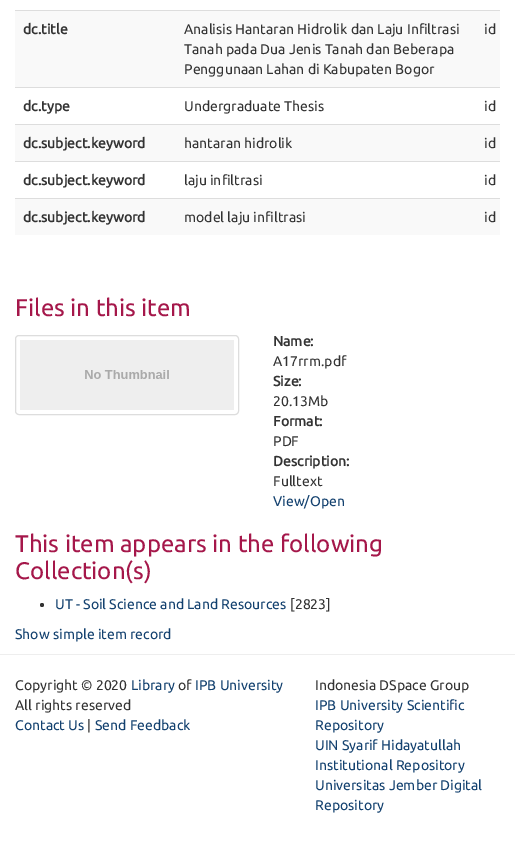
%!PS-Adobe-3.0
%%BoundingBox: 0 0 515 865
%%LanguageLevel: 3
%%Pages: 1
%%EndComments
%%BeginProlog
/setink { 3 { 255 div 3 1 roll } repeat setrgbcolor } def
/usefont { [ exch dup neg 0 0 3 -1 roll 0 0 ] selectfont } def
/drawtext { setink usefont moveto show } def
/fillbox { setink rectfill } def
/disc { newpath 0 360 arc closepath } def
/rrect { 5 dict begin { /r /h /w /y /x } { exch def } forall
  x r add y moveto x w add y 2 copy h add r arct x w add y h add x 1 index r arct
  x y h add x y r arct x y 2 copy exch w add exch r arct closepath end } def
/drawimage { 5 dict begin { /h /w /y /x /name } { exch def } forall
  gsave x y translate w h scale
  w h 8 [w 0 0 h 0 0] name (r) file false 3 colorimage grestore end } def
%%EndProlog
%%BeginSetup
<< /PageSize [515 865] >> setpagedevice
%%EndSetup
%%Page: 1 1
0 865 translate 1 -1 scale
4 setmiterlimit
0 0 515 865 255 255 255 fillbox
15 11 485 76 249 249 249 fillbox
(dc.title) 23 34 /Ubuntu-Bold 14 51 51 51 drawtext
(Analisis Hantaran Hidrolik dan Laju Infiltrasi) 184 34 /Ubuntu-Regular 14 51 51 51 drawtext
(Tanah pada Dua Jenis Tanah dan Beberapa) 184 54 /Ubuntu-Regular 14 51 51 51 drawtext
(Penggunaan Lahan di Kabupaten Bogor) 184 74 /Ubuntu-Regular 14 51 51 51 drawtext
15 10 485 1 221 221 221 fillbox
(id) 484 34 /Ubuntu-Regular 14 51 51 51 drawtext
(dc.type) 23 111 /Ubuntu-Bold 14 51 51 51 drawtext
(Undergraduate Thesis) 184 111 /Ubuntu-Regular 14 51 51 51 drawtext
15 87 485 1 221 221 221 fillbox
(id) 484 111 /Ubuntu-Regular 14 51 51 51 drawtext
15 125 485 36 249 249 249 fillbox
(dc.subject.keyword) 23 148 /Ubuntu-Bold 14 51 51 51 drawtext
(hantaran hidrolik) 184 148 /Ubuntu-Regular 14 51 51 51 drawtext
15 124 485 1 221 221 221 fillbox
(id) 484 148 /Ubuntu-Regular 14 51 51 51 drawtext
(dc.subject.keyword) 23 185 /Ubuntu-Bold 14 51 51 51 drawtext
(laju infiltrasi) 184 185 /Ubuntu-Regular 14 51 51 51 drawtext
15 161 485 1 221 221 221 fillbox
(id) 484 185 /Ubuntu-Regular 14 51 51 51 drawtext
15 199 485 36 249 249 249 fillbox
(dc.subject.keyword) 23 222 /Ubuntu-Bold 14 51 51 51 drawtext
(model laju infiltrasi) 184 222 /Ubuntu-Regular 14 51 51 51 drawtext
15 198 485 1 221 221 221 fillbox
(id) 484 222 /Ubuntu-Regular 14 51 51 51 drawtext
(Files in this item) 15 316 /Ubuntu-Regular 24 165 23 74 drawtext
221 221 221 setink
15.5 335.5 223 79 3.5 rrect stroke
(assets/img1.rgb) 20 340 214 70 drawimage
(Name:) 273 346 /Ubuntu-Bold 14 51 51 51 drawtext
(A17rrm.pdf) 273 366 /Ubuntu-Regular 14 51 51 51 drawtext
(Size:) 273 386 /Ubuntu-Bold 14 51 51 51 drawtext
(20.13Mb) 273 406 /Ubuntu-Regular 14 51 51 51 drawtext
(Format:) 273 426 /Ubuntu-Bold 14 51 51 51 drawtext
(PDF) 273 446 /Ubuntu-Regular 14 51 51 51 drawtext
(Description:) 273 466 /Ubuntu-Bold 14 51 51 51 drawtext
(Fulltext) 273 486 /Ubuntu-Regular 14 51 51 51 drawtext
(View/Open) 273 506 /Ubuntu-Regular 14 19 65 111 drawtext
(This item appears in the following) 15 552 /Ubuntu-Regular 24 165 23 74 drawtext
(Collection\(s\)) 15 579 /Ubuntu-Regular 24 165 23 74 drawtext
51 51 51 setink
42 605 2 disc fill
(UT - Soil Science and Land Resources) 55 609 /Ubuntu-Regular 14 19 65 111 drawtext
([2823]) 290 609 /Ubuntu-Regular 14 51 51 51 drawtext
(Show simple item record) 15 639 /Ubuntu-Regular 14 19 65 111 drawtext
0 654 515 1 238 238 238 fillbox
(Copyright © 2020) 15 690 /Ubuntu-Regular 14 51 51 51 drawtext
(Library) 131 690 /Ubuntu-Regular 14 19 65 111 drawtext
(of) 178 690 /Ubuntu-Regular 14 51 51 51 drawtext
(IPB University) 195 690 /Ubuntu-Regular 14 19 65 111 drawtext
(All rights reserved) 15 710 /Ubuntu-Regular 14 51 51 51 drawtext
(Contact Us) 15 730 /Ubuntu-Regular 14 19 65 111 drawtext
(|) 87 730 /Ubuntu-Regular 14 51 51 51 drawtext
(Send Feedback) 95 730 /Ubuntu-Regular 14 19 65 111 drawtext
(Indonesia DSpace Group) 315 690 /Ubuntu-Regular 14 51 51 51 drawtext
(IPB University Scientific) 315 710 /Ubuntu-Regular 14 19 65 111 drawtext
(Repository) 315 730 /Ubuntu-Regular 14 19 65 111 drawtext
(UIN Syarif Hidayatullah) 315 750 /Ubuntu-Regular 14 19 65 111 drawtext
(Institutional Repository) 315 770 /Ubuntu-Regular 14 19 65 111 drawtext
(Universitas Jember Digital) 315 790 /Ubuntu-Regular 14 19 65 111 drawtext
(Repository) 315 810 /Ubuntu-Regular 14 19 65 111 drawtext
showpage
%%EOF
